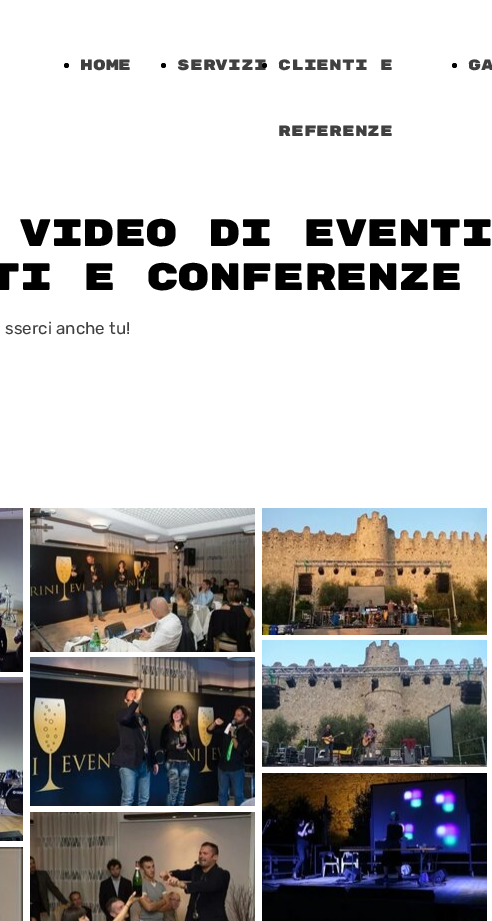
%!PS-Adobe-3.0
%%BoundingBox: 0 0 492 921
%%LanguageLevel: 3
%%Pages: 1
%%EndComments
%%BeginProlog
/setink { 3 { 255 div 3 1 roll } repeat setrgbcolor } def
/usefont { [ exch dup neg 0 0 3 -1 roll 0 0 ] selectfont } def
/drawtext { setink usefont moveto show } def
/fillbox { setink rectfill } def
/disc { newpath 0 360 arc closepath } def
/drawimage { 5 dict begin { /h /w /y /x /name } { exch def } forall
  gsave x y translate w h scale
  w h 8 [w 0 0 h 0 0] name (r) file false 3 colorimage grestore end } def
%%EndProlog
%%BeginSetup
<< /PageSize [492 921] >> setpagedevice
%%EndSetup
%%Page: 1 1
0 921 translate 1 -1 scale
4 setmiterlimit
0 0 492 921 255 255 255 fillbox
0 0 0 setink
66.5 65.5 2.5 disc fill
(Home) 80 70 /RubikMonoOne-Regular 15 64 64 64 drawtext
0 0 0 setink
163.5 65.5 2.5 disc fill
(Servizi) 177 70 /RubikMonoOne-Regular 15 64 64 64 drawtext
0 0 0 setink
264.5 65.5 2.5 disc fill
(Clienti e) 278 70 /RubikMonoOne-Regular 15 64 64 64 drawtext
(referenze) 278 136 /RubikMonoOne-Regular 15 64 64 64 drawtext
0 0 0 setink
454.5 65.5 2.5 disc fill
(Ga) 468 70 /RubikMonoOne-Regular 15 64 64 64 drawtext
/RubikMonoOne-Regular 38.3 usefont
0 0 0 setink
19 246 moveto -1 0 (VIDEO DI EVENTI) ashow
-12 290 moveto -1 0 (TI E CONFERENZE) ashow
(sserci anche tu!) 5 334 /Rubik-Regular 17 64 64 64 drawtext
(assets/img1.rgb) 0 508 23 164 drawimage
(assets/img2.rgb) 30 508 225 144 drawimage
(assets/img3.rgb) 262 508 225 127 drawimage
(assets/img4.rgb) 0 677 23 164 drawimage
(assets/img5.rgb) 30 657 225 149 drawimage
(assets/img6.rgb) 262 640 225 127 drawimage
(assets/img7.rgb) 0 847 23 74 drawimage
(assets/img8.rgb) 30 812 225 109 drawimage
(assets/img9.rgb) 262 773 225 148 drawimage
showpage
%%EOF
